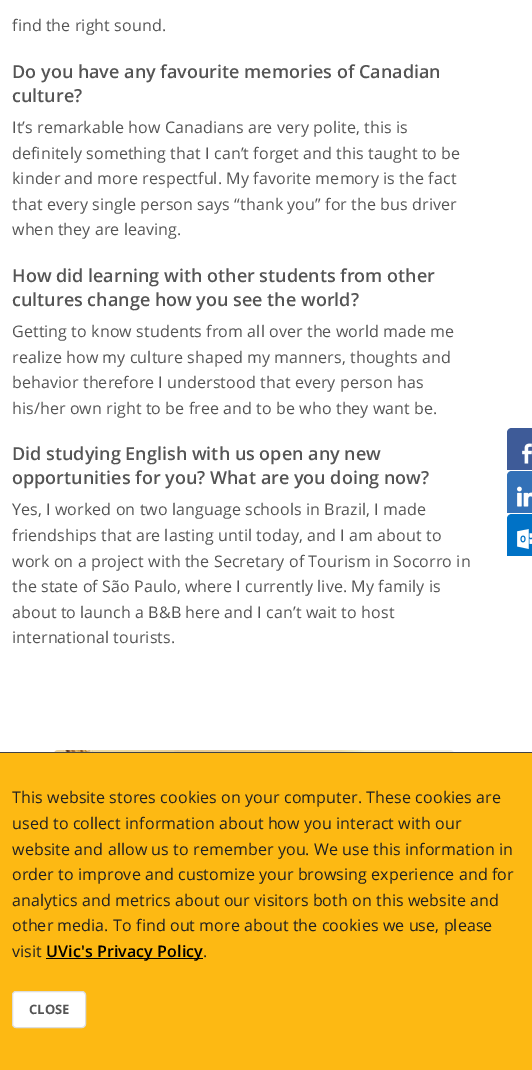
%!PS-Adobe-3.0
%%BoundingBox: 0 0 532 1070
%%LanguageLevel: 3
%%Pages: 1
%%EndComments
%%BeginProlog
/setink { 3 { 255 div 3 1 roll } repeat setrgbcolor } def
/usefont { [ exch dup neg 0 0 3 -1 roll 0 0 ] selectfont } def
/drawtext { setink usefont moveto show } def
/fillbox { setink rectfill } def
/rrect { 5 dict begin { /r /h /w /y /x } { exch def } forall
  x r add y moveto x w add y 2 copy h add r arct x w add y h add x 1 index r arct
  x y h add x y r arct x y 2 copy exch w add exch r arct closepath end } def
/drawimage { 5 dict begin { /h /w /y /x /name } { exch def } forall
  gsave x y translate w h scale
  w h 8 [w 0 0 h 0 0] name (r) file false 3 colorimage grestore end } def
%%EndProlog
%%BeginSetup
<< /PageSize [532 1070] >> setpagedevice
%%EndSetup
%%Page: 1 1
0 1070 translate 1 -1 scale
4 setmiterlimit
0 0 532 1070 255 255 255 fillbox
/OpenSans-Regular 16 usefont
85 85 85 setink
12 31 moveto 0.1 0 (find the right sound.) ashow
(Do you have any favourite memories of Canadian) 12 78 /OpenSans-SemiBold 18 85 85 85 drawtext
(culture?) 12 102 /OpenSans-SemiBold 18 85 85 85 drawtext
/OpenSans-Regular 16 usefont
12 133 moveto 0.1 0 (It’s remarkable how Canadians are very polite, this is) ashow
12 159 moveto 0.1 0 (definitely something that I can’t forget and this taught to be) ashow
12 184 moveto 0.1 0 (kinder and more respectful. My favorite memory is the fact) ashow
12 210 moveto 0.1 0 (that every single person says “thank you” for the bus driver) ashow
12 235 moveto 0.1 0 (when they are leaving.) ashow
(How did learning with other students from other) 12 282 /OpenSans-SemiBold 18 85 85 85 drawtext
(cultures change how you see the world?) 12 306 /OpenSans-SemiBold 18 85 85 85 drawtext
/OpenSans-Regular 16 usefont
12 337 moveto 0.1 0 (Getting to know students from all over the world made me) ashow
12 363 moveto 0.1 0 (realize how my culture shaped my manners, thoughts and) ashow
12 388 moveto 0.1 0 (behavior therefore I understood that every person has) ashow
12 414 moveto 0.1 0 (his/her own right to be free and to be who they want be.) ashow
(Did studying English with us open any new) 12 460 /OpenSans-SemiBold 18 85 85 85 drawtext
(opportunities for you? What are you doing now?) 12 484 /OpenSans-SemiBold 18 85 85 85 drawtext
/OpenSans-Regular 16 usefont
12 515 moveto 0.1 0 (Yes, I worked on two language schools in Brazil, I made) ashow
12 541 moveto 0.1 0 (friendships that are lasting until today, and I am about to) ashow
12 567 moveto 0.1 0 (work on a project with the Secretary of Tourism in Socorro in) ashow
12 592 moveto 0.1 0 (the state of São Paulo, where I currently live. My family is) ashow
12 618 moveto 0.1 0 (about to launch a B&B here and I can’t wait to host) ashow
12 643 moveto 0.1 0 (international tourists.) ashow
(assets/img1.rgb) 54 750 400 2 drawimage
0 753 532 317 253 185 19 fillbox
0 752 532 1 63 66 71 fillbox
33 33 33 setink
12 803 moveto 0.1 0 (This website stores cookies on your computer. These cookies are) ashow
12 829 moveto 0.1 0 (used to collect information about how you interact with our) ashow
12 855 moveto 0.1 0 (website and allow us to remember you. We use this information in) ashow
12 880 moveto 0.1 0 (order to improve and customize your browsing experience and for) ashow
12 906 moveto 0.1 0 (analytics and metrics about our visitors both on this website and) ashow
12 931 moveto 0.1 0 (other media. To find out more about the cookies we use, please) ashow
12 957 moveto 0.1 0 (visit) ashow
46 958 157 1 0 0 0 fillbox
/OpenSans-SemiBold 16 usefont
46 957 moveto 0.1 0 (UVic's Privacy Policy) ashow
/OpenSans-Regular 16 usefont
33 33 33 setink
203 957 moveto 0.1 0 (.) ashow
255 255 255 setink
12.5 991.5 73 36 3.5 rrect gsave fill grestore
221 221 221 setink
stroke
(CLOSE) 29 1014 /OpenSans-Bold 13 85 85 85 drawtext
62 91 152 setink
512 428 moveto 532 428 lineto 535 428 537 430 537 433 curveto 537 470 lineto 507 470 lineto 507 433 lineto 507 430 509 428 512 428 curveto closepath fill
(assets/img2.rgb) 522 443 10 21 drawimage
51 113 183 setink
512 471 moveto 532 471 lineto 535 471 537 473 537 476 curveto 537 513 lineto 507 513 lineto 507 476 lineto 507 473 509 471 512 471 curveto closepath fill
(assets/img3.rgb) 517 486 15 21 drawimage
0 114 198 setink
512 514 moveto 532 514 lineto 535 514 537 516 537 519 curveto 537 556 lineto 507 556 lineto 507 519 lineto 507 516 509 514 512 514 curveto closepath fill
(assets/img4.rgb) 517 529 15 20 drawimage
showpage
%%EOF
